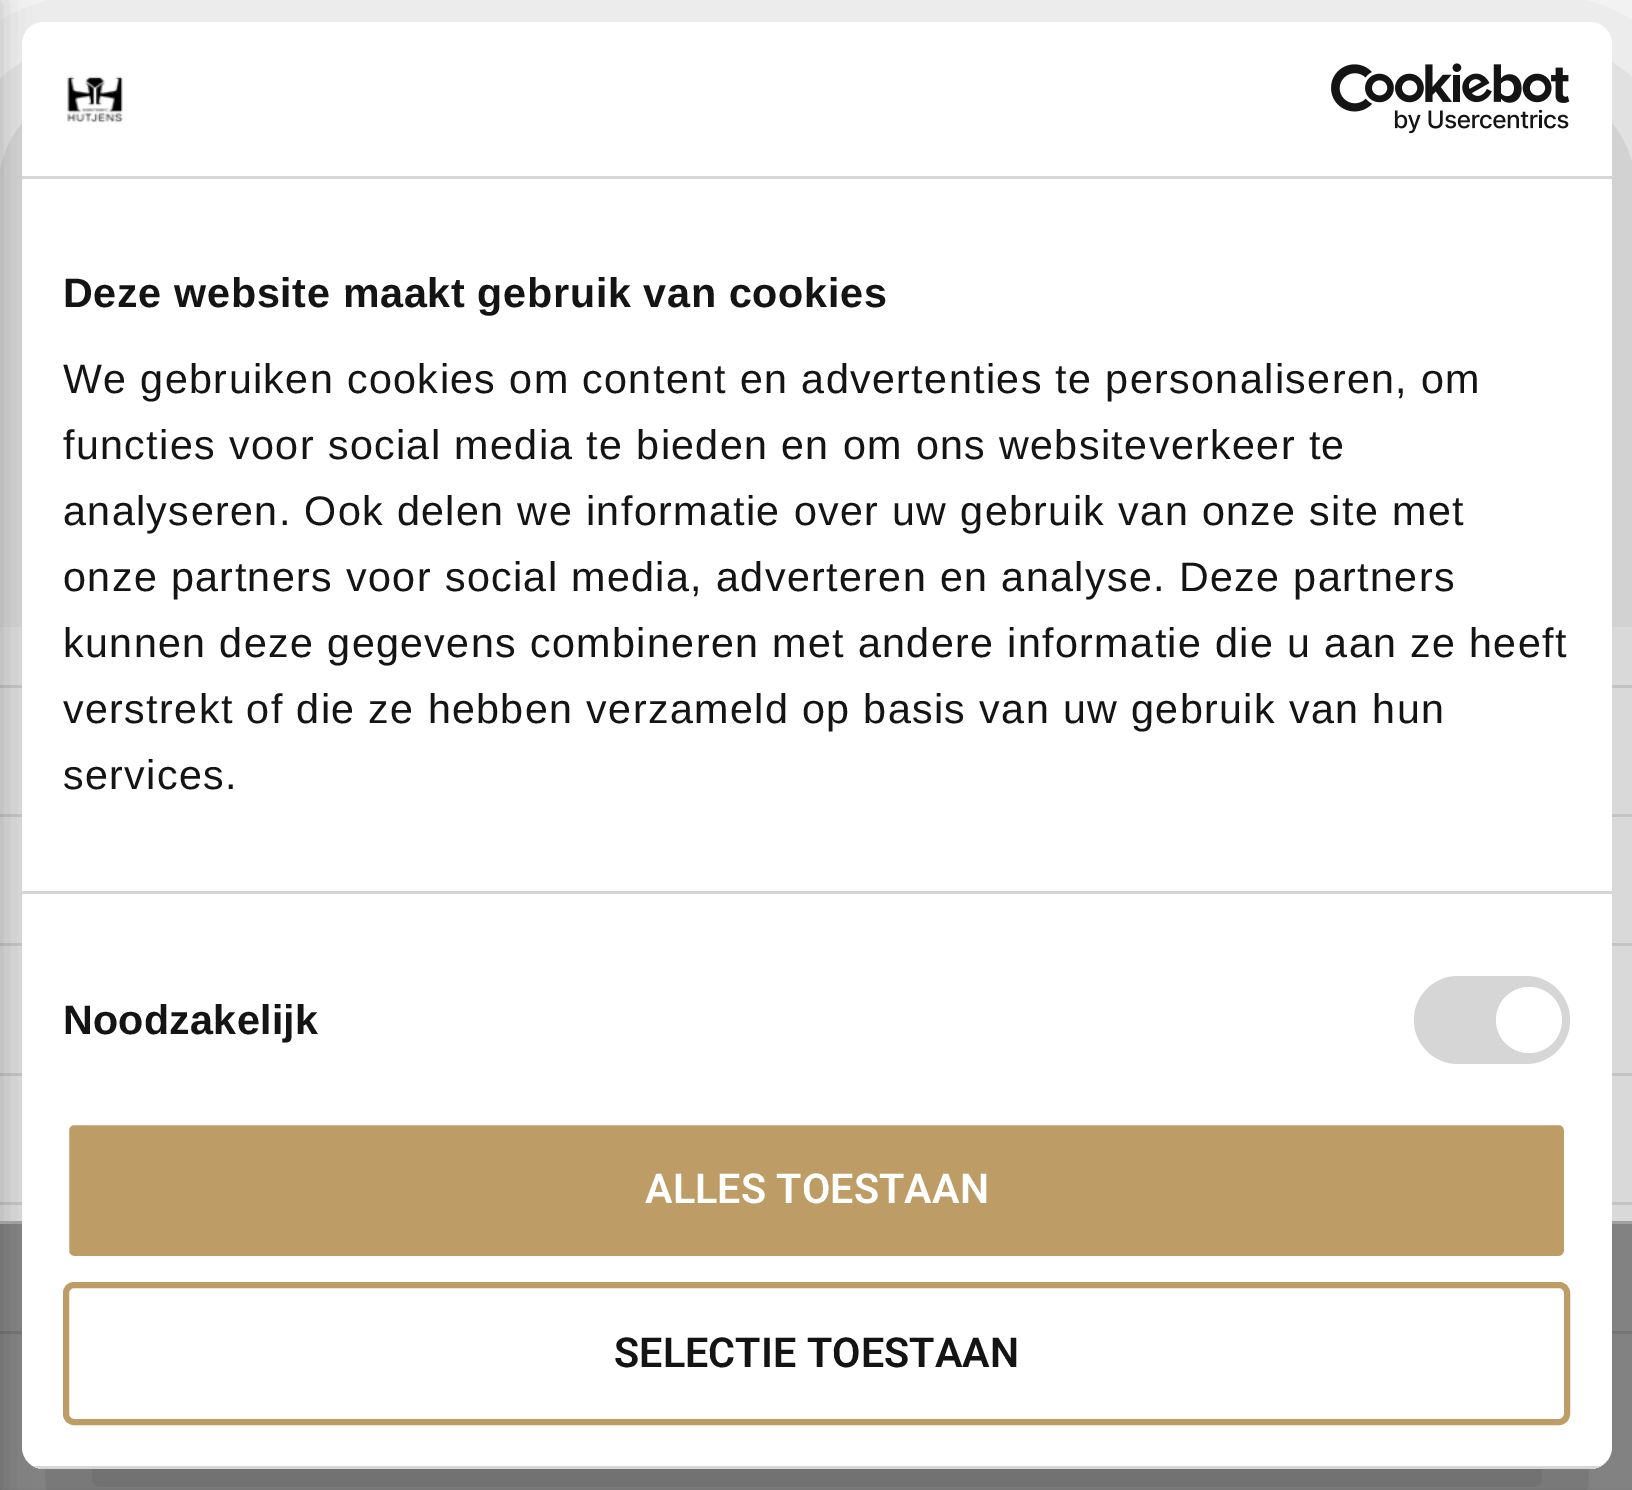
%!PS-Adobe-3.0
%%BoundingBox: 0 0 1632 1490
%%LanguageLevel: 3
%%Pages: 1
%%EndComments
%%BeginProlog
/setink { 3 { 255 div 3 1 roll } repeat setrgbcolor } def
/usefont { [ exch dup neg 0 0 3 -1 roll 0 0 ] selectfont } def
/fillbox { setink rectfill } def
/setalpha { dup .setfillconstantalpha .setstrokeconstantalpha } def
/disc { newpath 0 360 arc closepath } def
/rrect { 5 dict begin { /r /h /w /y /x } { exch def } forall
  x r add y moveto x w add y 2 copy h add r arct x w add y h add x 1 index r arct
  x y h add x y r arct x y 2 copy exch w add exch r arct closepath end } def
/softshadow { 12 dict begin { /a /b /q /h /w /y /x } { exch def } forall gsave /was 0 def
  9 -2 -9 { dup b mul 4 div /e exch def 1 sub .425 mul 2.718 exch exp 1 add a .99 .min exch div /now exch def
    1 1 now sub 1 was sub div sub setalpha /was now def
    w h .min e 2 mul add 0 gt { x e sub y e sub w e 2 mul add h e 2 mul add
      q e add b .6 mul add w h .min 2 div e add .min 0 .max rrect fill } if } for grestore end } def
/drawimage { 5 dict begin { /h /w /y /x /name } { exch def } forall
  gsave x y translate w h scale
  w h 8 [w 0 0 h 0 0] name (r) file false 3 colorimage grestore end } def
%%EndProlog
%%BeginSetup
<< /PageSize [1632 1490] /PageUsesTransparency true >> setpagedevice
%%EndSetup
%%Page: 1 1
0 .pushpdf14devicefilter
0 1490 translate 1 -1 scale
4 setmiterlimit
0 0 1632 1490 250 250 250 fillbox
0 627 1632 861 255 255 255 fillbox
0 0 1632 627 247 247 247 fillbox
0 685 1632 3 229 229 229 fillbox
0 1331 1632 3 229 229 229 fillbox
0 814 1632 3 229 229 229 fillbox
0 943 1632 3 229 229 229 fillbox
0 1073 1632 3 229 229 229 fillbox
0 1202 1632 3 229 229 229 fillbox
0 0 0 setink
-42 0 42 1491 0 14 0.1 softshadow
-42 0 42 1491 0 14 0.1 softshadow
0.4 setalpha
0 1224 1632 266 0 0 0 fillbox
1 setalpha
0 1221 1632 3 187 187 187 fillbox
0 0 0 setink
22 110 1590 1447 22 93.5 0.3 softshadow
255 255 255 setink
22 22 1590 1447 22 rrect fill
22 176 1590 3 214 214 214 fillbox
(assets/img1.rgb) 67 76 56 47 drawimage
(assets/img2.rgb) 1331 63 239 71 drawimage
22 891 1590 3 214 214 214 fillbox
/LiberationSans-Bold 41.25 usefont
20 20 20 setink
63 307 moveto 0.7 0 (Deze website maakt gebruik van cookies) ashow
/LiberationSans-Regular 41.25 usefont
63 393 moveto 1.38 0 (We gebruiken cookies om content en advertenties te personaliseren, om) ashow
63 459 moveto 1.38 0 (functies voor social media te bieden en om ons websiteverkeer te) ashow
63 525 moveto 1.38 0 (analyseren. Ook delen we informatie over uw gebruik van onze site met) ashow
63 591 moveto 1.38 0 (onze partners voor social media, adverteren en analyse. Deze partners) ashow
63 657 moveto 1.38 0 (kunnen deze gegevens combineren met andere informatie die u aan ze heeft) ashow
63 723 moveto 1.38 0 (verstrekt of die ze hebben verzameld op basis van uw gebruik van hun) ashow
63 789 moveto 1.38 0 (services.) ashow
/LiberationSans-Bold 41.25 usefont
63 1034 moveto 0.25 0 (Noodzakelijk) ashow
214 214 214 setink
1414 976 156 88 44 rrect fill
255 255 255 setink
1529 1020 33 disc fill
gsave
22 22 1590 1447 22 rrect clip newpath
33 1466 1568 3 214 214 214 fillbox
grestore
189 156 101 setink
66 1122 1501 137 8 rrect gsave fill grestore
255 255 255 setink
6 setlinewidth
stroke
/Roboto-SemiBold 41.25 usefont
645 1203 moveto 0.1 0 (ALLES TOESTAAN) ashow
189 156 101 setink
66 1285 1501 137 8 rrect stroke
20 20 20 setink
614 1367 moveto 0.1 0 (SELECTIE TOESTAAN) ashow
.poppdf14devicefilter showpage
%%EOF
